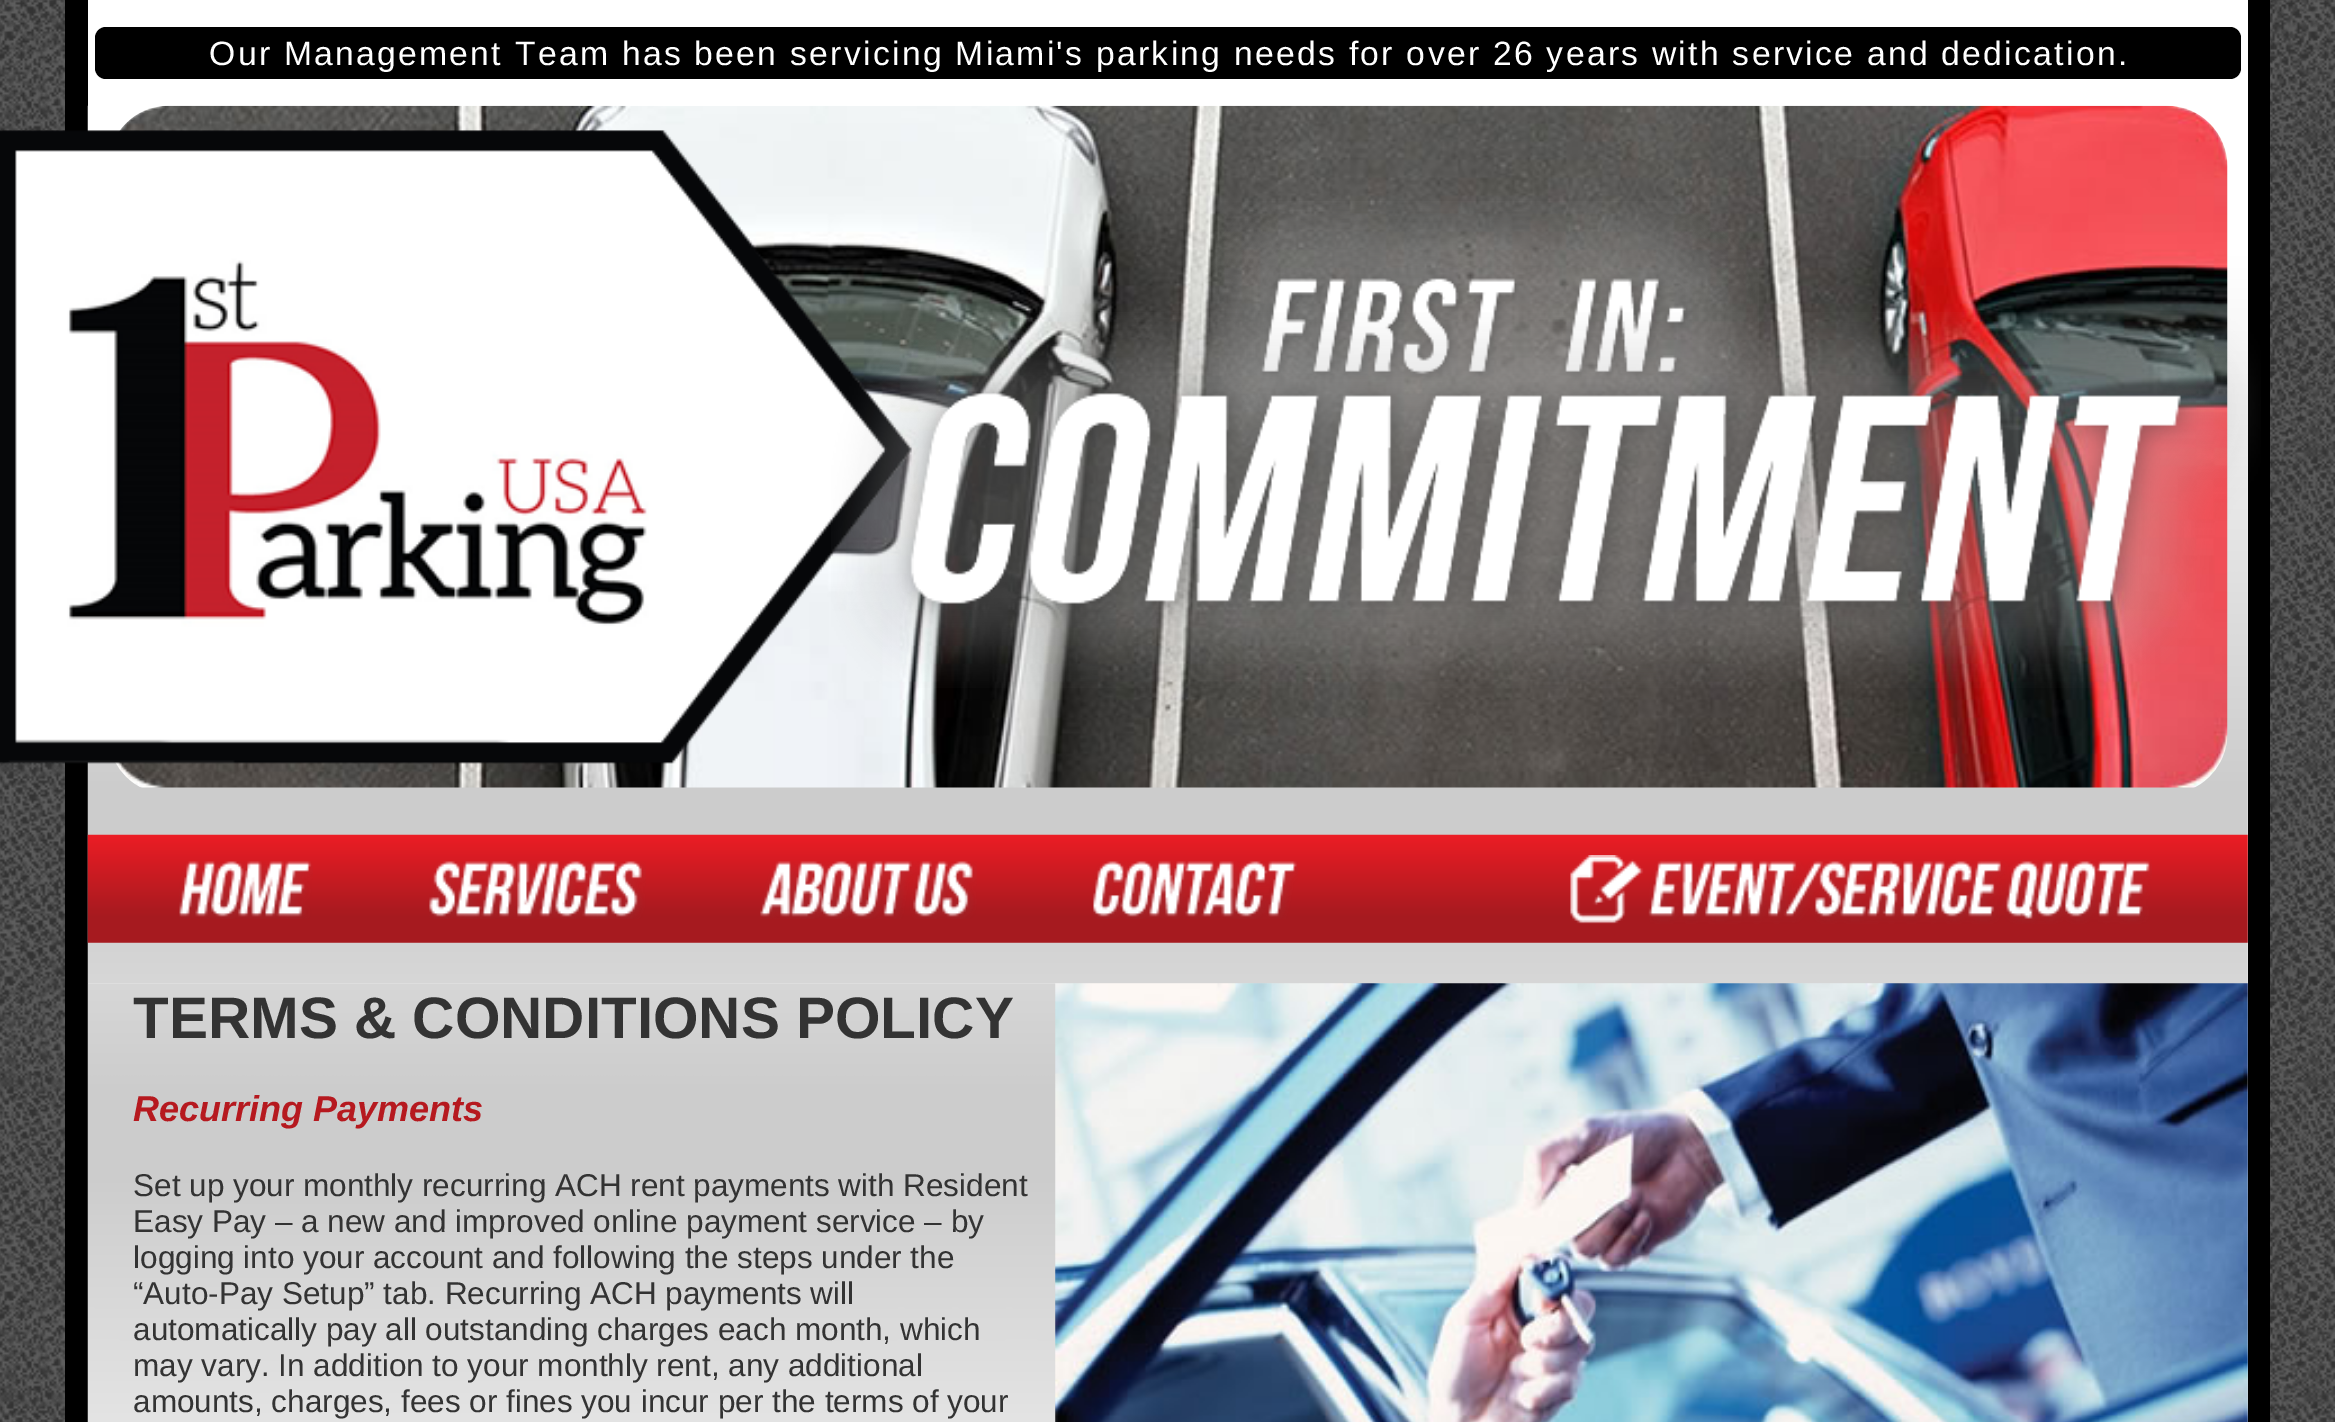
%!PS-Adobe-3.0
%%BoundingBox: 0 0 2335 1422
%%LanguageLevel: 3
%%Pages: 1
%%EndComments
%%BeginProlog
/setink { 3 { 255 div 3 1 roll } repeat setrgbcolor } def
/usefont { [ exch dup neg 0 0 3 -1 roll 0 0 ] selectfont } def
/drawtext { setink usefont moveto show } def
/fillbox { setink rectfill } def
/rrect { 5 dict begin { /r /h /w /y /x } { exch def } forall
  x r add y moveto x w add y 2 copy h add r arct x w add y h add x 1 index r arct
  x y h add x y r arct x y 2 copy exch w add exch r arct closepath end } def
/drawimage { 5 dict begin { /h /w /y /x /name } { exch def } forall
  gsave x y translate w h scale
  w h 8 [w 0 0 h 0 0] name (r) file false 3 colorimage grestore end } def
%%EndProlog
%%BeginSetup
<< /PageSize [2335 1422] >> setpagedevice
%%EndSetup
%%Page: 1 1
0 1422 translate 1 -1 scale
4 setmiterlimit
0 0 2335 1422 153 153 153 fillbox
(assets/img1.rgb) 0 0 2335 1422 drawimage
88 0 2160 1422 255 255 255 fillbox
2248 0 22 1422 0 0 0 fillbox
65 0 23 1422 0 0 0 fillbox
95 27 2146 52 11 rrect fill
/LiberationSans-Regular 33.75 usefont
255 255 255 setink
209 65 moveto 2.25 0 (Our Management Team has been servicing Miami's parking needs for over 26 years with service and dedication.) ashow
(assets/img2.rgb) 87 105 2161 879 drawimage
(assets/img3.rgb) 115 105 2113 683 drawimage
(assets/img4.rgb) 0 130 912 634 drawimage
(assets/img5.rgb) 1200 201 559 250 drawimage
(assets/img6.rgb) 831 312 1430 376 drawimage
(assets/img7.rgb) 87 834 2161 109 drawimage
(assets/img8.rgb) 179 861 134 58 drawimage
(assets/img9.rgb) 429 861 217 58 drawimage
(assets/img10.rgb) 760 861 217 58 drawimage
(assets/img11.rgb) 1093 861 205 58 drawimage
(assets/img12.rgb) 1570 855 582 69 drawimage
(assets/img13.rgb) 87 983 2161 439 drawimage
(TERMS & CONDITIONS POLICY) 133 1038 /LiberationSans-Bold 58.5 51 51 51 drawtext
(assets/img14.rgb) 1055 983 1193 439 drawimage
(Recurring Payments) 133 1121 /LiberationSans-BoldItalic 36 182 25 31 drawtext
(Set up your monthly recurring ACH rent payments with Resident) 133 1196 /LiberationSans-Regular 31.5 51 51 51 drawtext
(Easy Pay – a new and improved online payment service – by) 133 1232 /LiberationSans-Regular 31.5 51 51 51 drawtext
(logging into your account and following the steps under the) 133 1268 /LiberationSans-Regular 31.5 51 51 51 drawtext
(“Auto-Pay Setup” tab. Recurring ACH payments will) 133 1304 /LiberationSans-Regular 31.5 51 51 51 drawtext
(automatically pay all outstanding charges each month, which) 133 1340 /LiberationSans-Regular 31.5 51 51 51 drawtext
(may vary. In addition to your monthly rent, any additional) 133 1376 /LiberationSans-Regular 31.5 51 51 51 drawtext
(amounts, charges, fees or fines you incur per the terms of your) 133 1412 /LiberationSans-Regular 31.5 51 51 51 drawtext
showpage
%%EOF
